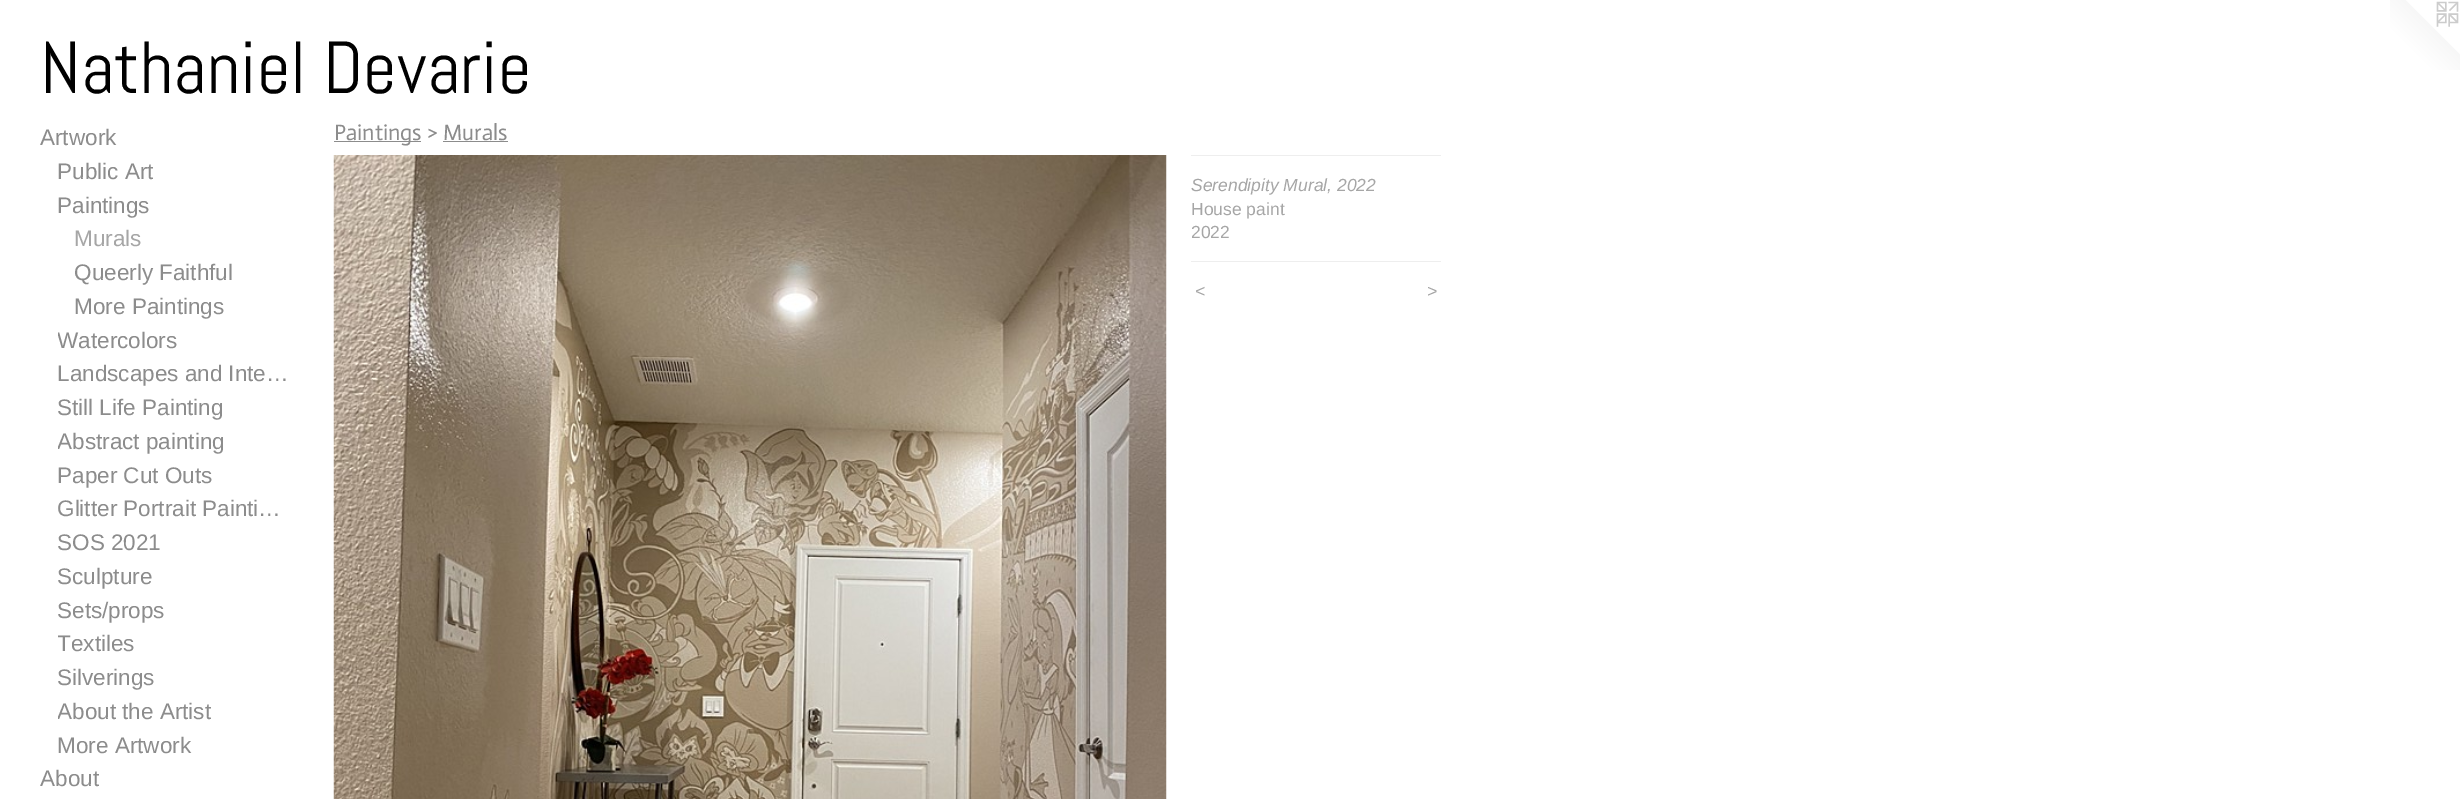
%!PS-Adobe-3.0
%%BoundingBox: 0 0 2460 799
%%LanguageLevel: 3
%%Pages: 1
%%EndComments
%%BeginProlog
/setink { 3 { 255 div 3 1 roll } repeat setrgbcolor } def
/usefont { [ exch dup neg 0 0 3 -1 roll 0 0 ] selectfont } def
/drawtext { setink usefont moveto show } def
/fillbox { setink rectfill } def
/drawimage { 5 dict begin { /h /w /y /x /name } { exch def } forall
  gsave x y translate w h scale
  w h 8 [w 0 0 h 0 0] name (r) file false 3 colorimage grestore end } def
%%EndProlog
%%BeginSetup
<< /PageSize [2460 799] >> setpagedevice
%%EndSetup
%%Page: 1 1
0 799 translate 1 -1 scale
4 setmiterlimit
0 0 2460 799 255 255 255 fillbox
(Nathaniel Devarie) 40 93 /Abel-Regular 73.75 0 0 0 drawtext
(assets/img1.rgb) 2390 0 70 70 drawimage
(Artwork) 40 145 /LiberationSans-Regular 22.5 140 140 140 drawtext
(Public Art) 57 179 /LiberationSans-Regular 22.5 140 140 140 drawtext
(Paintings) 57 213 /LiberationSans-Regular 22.5 140 140 140 drawtext
(Murals) 74 246 /LiberationSans-Regular 22.5 166 166 166 drawtext
(Queerly Faithful) 74 280 /LiberationSans-Regular 22.5 140 140 140 drawtext
(More Paintings) 74 314 /LiberationSans-Regular 22.5 140 140 140 drawtext
gsave
58 324 232 34 rectclip
(Watercolors) 57 348 /LiberationSans-Regular 22.5 140 140 140 drawtext
grestore
(Landscapes and Inte…) 57 381 /LiberationSans-Regular 22.5 140 140 140 drawtext
(Still Life Painting) 57 415 /LiberationSans-Regular 22.5 140 140 140 drawtext
gsave
58 425 232 34 rectclip
(Abstract painting) 57 449 /LiberationSans-Regular 22.5 140 140 140 drawtext
grestore
(Paper Cut Outs) 57 483 /LiberationSans-Regular 22.5 140 140 140 drawtext
(Glitter Portrait Painti…) 57 516 /LiberationSans-Regular 22.5 140 140 140 drawtext
(SOS 2021) 57 550 /LiberationSans-Regular 22.5 140 140 140 drawtext
(Sculpture) 57 584 /LiberationSans-Regular 22.5 140 140 140 drawtext
(Sets/props) 57 618 /LiberationSans-Regular 22.5 140 140 140 drawtext
gsave
58 628 232 33 rectclip
(Textiles) 57 651 /LiberationSans-Regular 22.5 140 140 140 drawtext
grestore
(Silverings) 57 685 /LiberationSans-Regular 22.5 140 140 140 drawtext
gsave
58 695 232 34 rectclip
(About the Artist) 57 719 /LiberationSans-Regular 22.5 140 140 140 drawtext
grestore
(More Artwork) 57 753 /LiberationSans-Regular 22.5 140 140 140 drawtext
(About) 40 786 /LiberationSans-Regular 22.5 140 140 140 drawtext
334 141 87 1 140 140 140 fillbox
(Paintings > Murals) 334 140 /Actor-Regular 22.5 140 140 140 drawtext
443 141 65 1 140 140 140 fillbox
(assets/img2.rgb) 333 155 834 644 drawimage
1191 155 250 1 238 238 238 fillbox
(Serendipity Mural, 2022) 1191 191 /LiberationSans-Italic 17.5 166 166 166 drawtext
(House paint) 1191 215 /LiberationSans-Regular 17.5 166 166 166 drawtext
(2022) 1191 238 /LiberationSans-Regular 17.5 166 166 166 drawtext
1191 261 250 1 238 238 238 fillbox
/LiberationSans-Italic 17.5 usefont
166 166 166 setink
1195 297 moveto 1 0 (<) ashow
1427 297 moveto 1 0 (>) ashow
showpage
%%EOF
